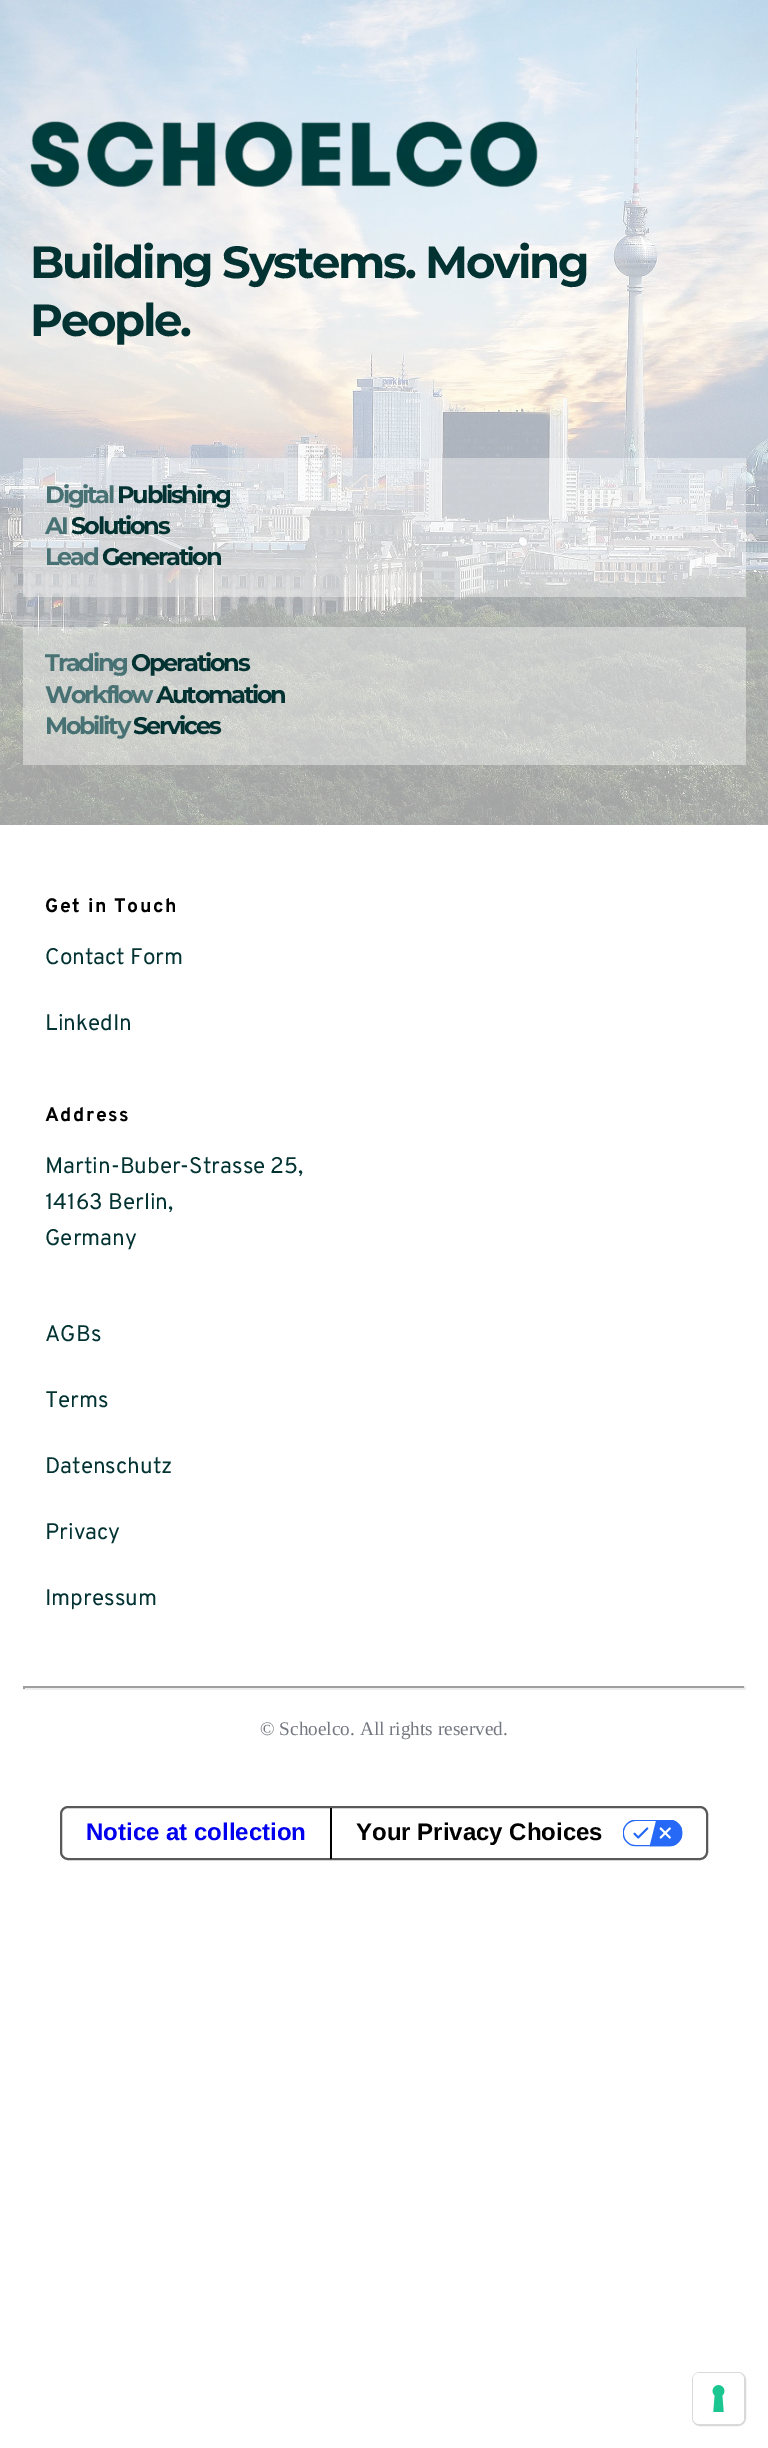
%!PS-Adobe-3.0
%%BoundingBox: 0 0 768 2448
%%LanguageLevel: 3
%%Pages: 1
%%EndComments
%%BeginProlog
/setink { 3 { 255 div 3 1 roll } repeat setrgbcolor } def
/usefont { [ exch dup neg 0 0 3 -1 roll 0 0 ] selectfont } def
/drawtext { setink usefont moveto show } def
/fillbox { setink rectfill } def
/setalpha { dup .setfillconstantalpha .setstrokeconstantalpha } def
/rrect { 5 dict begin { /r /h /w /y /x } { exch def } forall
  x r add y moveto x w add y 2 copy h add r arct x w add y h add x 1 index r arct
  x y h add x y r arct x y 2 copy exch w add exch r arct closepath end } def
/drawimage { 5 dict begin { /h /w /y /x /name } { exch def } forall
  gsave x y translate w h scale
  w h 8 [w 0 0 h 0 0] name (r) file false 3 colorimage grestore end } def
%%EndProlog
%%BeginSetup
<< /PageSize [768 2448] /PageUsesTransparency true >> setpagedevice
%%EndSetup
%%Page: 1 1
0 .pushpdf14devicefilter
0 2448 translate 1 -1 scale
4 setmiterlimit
0 0 768 2448 255 255 255 fillbox
(assets/img1.rgb) 0 0 768 825 drawimage
(assets/img2.rgb) 30 121 508 67 drawimage
/Montserrat-Thin 45 usefont
3 50 50 setink
30 278 moveto -2.25 0 (Building Systems. Moving) ashow
30 336 moveto -2.25 0 (People.) ashow
0.39 setalpha
23 458 723 139 255 255 255 fillbox
/Montserrat-Thin 24 usefont
1 setalpha
71 113 115 setink
45 503 moveto -2.25 0 (Digital) ashow
3 50 50 setink
117 503 moveto -2.25 0 (Publishing) ashow
71 113 115 setink
45 534 moveto -2.25 0 (AI) ashow
3 50 50 setink
71 534 moveto -2.25 0 (Solutions) ashow
71 113 115 setink
45 565 moveto -2.25 0 (Lead) ashow
3 50 50 setink
102 565 moveto -2.25 0 (Generation) ashow
0.39 setalpha
23 627 723 138 255 255 255 fillbox
1 setalpha
71 113 115 setink
45 671 moveto -2.25 0 (Trading) ashow
3 50 50 setink
131 671 moveto -2.25 0 (Operations) ashow
71 113 115 setink
45 703 moveto -2.25 0 (Workflow) ashow
3 50 50 setink
156 703 moveto -2.25 0 (Automation) ashow
71 113 115 setink
45 734 moveto -2.25 0 (Mobility) ashow
3 50 50 setink
133 734 moveto -2.25 0 (Services) ashow
/Overpass-Bold 19.5 usefont
0 0 0 setink
45 912 moveto 1.5 0 (Get in Touch) ashow
(Contact Form) 45 964 /Overpass-Regular 22.5 3 50 50 drawtext
(LinkedIn) 45 1030 /Overpass-Regular 22.5 3 50 50 drawtext
/Overpass-Bold 19.5 usefont
0 0 0 setink
45 1121 moveto 1.5 0 (Address) ashow
(Martin-Buber-Strasse 25,) 45 1173 /Overpass-Regular 22.5 3 50 50 drawtext
(14163 Berlin,) 45 1209 /Overpass-Regular 22.5 3 50 50 drawtext
(Germany) 45 1245 /Overpass-Regular 22.5 3 50 50 drawtext
(AGBs) 45 1341 /Overpass-Regular 22.5 3 50 50 drawtext
(Terms) 45 1407 /Overpass-Regular 22.5 3 50 50 drawtext
(Datenschutz) 45 1473 /Overpass-Regular 22.5 3 50 50 drawtext
(Privacy) 45 1539 /Overpass-Regular 22.5 3 50 50 drawtext
(Impressum) 45 1605 /Overpass-Regular 22.5 3 50 50 drawtext
23 1686 723 2 159 159 159 fillbox
744 1686 2 3 238 238 238 fillbox
23 1688 723 2 238 238 238 fillbox
23 1686 2 3 159 159 159 fillbox
(© Schoelco. All rights reserved.) 260 1735 /LiberationSerif-Regular 19.25 115 119 127 drawtext
89 89 89 setink
2 setlinewidth
61 1807 646 52 7 rrect stroke
(Notice at collection) 86 1840 /LiberationSans-Bold 24 0 0 238 drawtext
330 1808 2 51 0 0 0 fillbox
(Your Privacy Choices) 356 1840 /LiberationSans-Bold 24 0 0 0 drawtext
(assets/img3.rgb) 623 1820 60 27 drawimage
217 217 217 setink
693 2373 52 52 7 rrect stroke
255 255 255 setink
693 2373 51 51 6 rrect fill
(assets/img4.rgb) 712 2385 13 27 drawimage
.poppdf14devicefilter showpage
%%EOF
